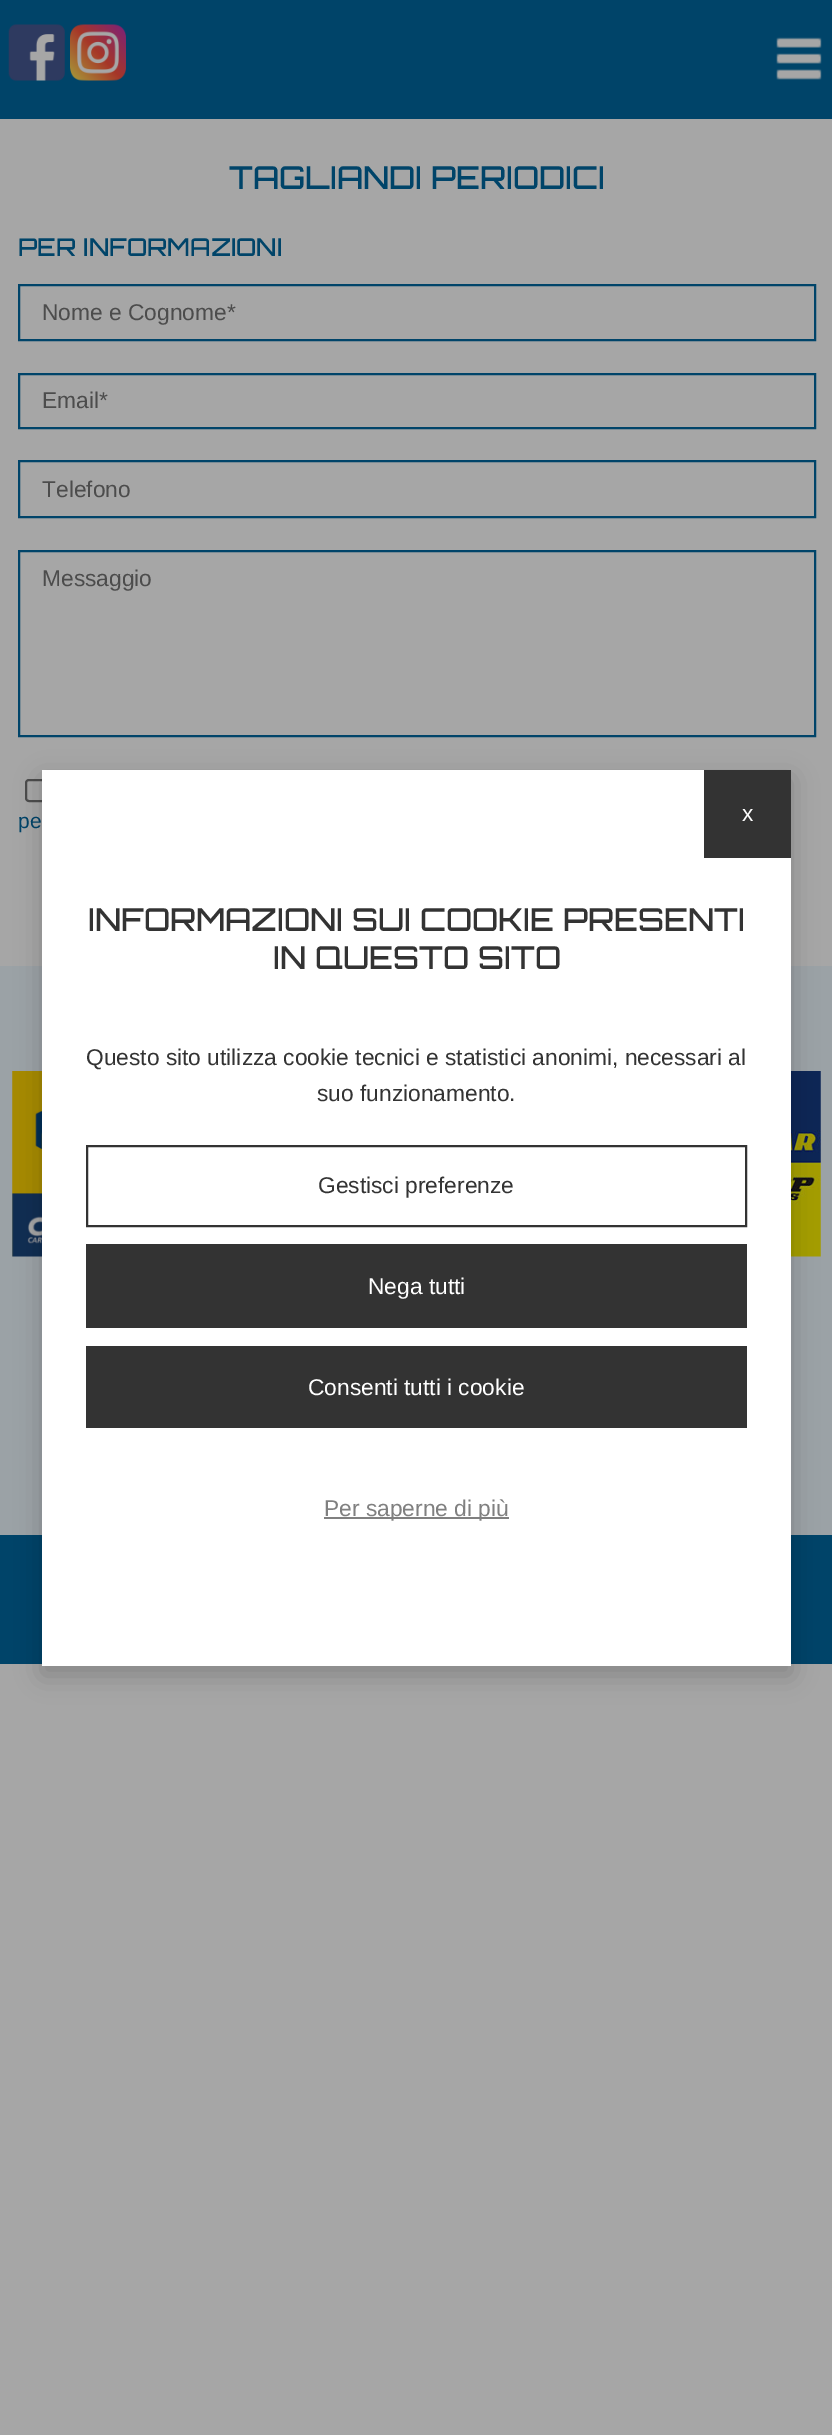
%!PS-Adobe-3.0
%%BoundingBox: 0 0 832 2435
%%LanguageLevel: 3
%%Pages: 1
%%EndComments
%%BeginProlog
/setink { 3 { 255 div 3 1 roll } repeat setrgbcolor } def
/usefont { [ exch dup neg 0 0 3 -1 roll 0 0 ] selectfont } def
/drawtext { setink usefont moveto show } def
/fillbox { setink rectfill } def
/setalpha { dup .setfillconstantalpha .setstrokeconstantalpha } def
/rrect { 5 dict begin { /r /h /w /y /x } { exch def } forall
  x r add y moveto x w add y 2 copy h add r arct x w add y h add x 1 index r arct
  x y h add x y r arct x y 2 copy exch w add exch r arct closepath end } def
/softshadow { 12 dict begin { /a /b /q /h /w /y /x } { exch def } forall gsave /was 0 def
  9 -2 -9 { dup b mul 4 div /e exch def 1 sub .425 mul 2.718 exch exp 1 add a .99 .min exch div /now exch def
    1 1 now sub 1 was sub div sub setalpha /was now def
    w h .min e 2 mul add 0 gt { x e sub y e sub w e 2 mul add h e 2 mul add
      q e add b .6 mul add w h .min 2 div e add .min 0 .max rrect fill } if } for grestore end } def
/drawimage { 5 dict begin { /h /w /y /x /name } { exch def } forall
  gsave x y translate w h scale
  w h 8 [w 0 0 h 0 0] name (r) file false 3 colorimage grestore end } def
%%EndProlog
%%BeginSetup
<< /PageSize [832 2435] /PageUsesTransparency true >> setpagedevice
%%EndSetup
%%Page: 1 1
0 .pushpdf14devicefilter
0 2435 translate 1 -1 scale
4 setmiterlimit
0 0 832 2435 166 166 166 fillbox
0 0 832 119 0 68 105 fillbox
(assets/img1.rgb) 8 24 57 57 drawimage
(assets/img2.rgb) 70 24 56 57 drawimage
(assets/img3.rgb) 776 37 46 43 drawimage
(TAGLIANDI PERIODICI) 229 189 /Orbitron-Medium 31.5 0 68 105 drawtext
(PER INFORMAZIONI) 18 256 /Orbitron-Medium 24.5 0 68 105 drawtext
2 setlinewidth
19 285 796 55 rectstroke
(Nome e Cognome*) 42 320 /LiberationSans-Regular 22.75 76 76 76 drawtext
0 68 105 setink
19 374 796 54 rectstroke
(Email*) 42 408 /LiberationSans-Regular 22.75 76 76 76 drawtext
0 68 105 setink
19 461 796 56 rectstroke
(Telefono) 42 497 /LiberationSans-Regular 22.75 76 76 76 drawtext
0 68 105 setink
19 551 796 185 rectstroke
(Messaggio) 42 586 /LiberationSans-Regular 22.75 76 76 76 drawtext
77 77 77 setink
26 780 20 21 3 rrect stroke
(pe) 18 828 /LiberationSans-Regular 21 0 68 105 drawtext
0 966 832 569 155 162 166 fillbox
(assets/img4.rgb) 12 1071 30 186 drawimage
(assets/img5.rgb) 791 1071 30 186 drawimage
0 1535 832 129 0 68 105 fillbox
0 0 0 setink
42 779 749 896 0 13 0.2 softshadow
42 770 749 896 255 255 255 fillbox
704 770 87 88 51 51 51 fillbox
(x) 742 821 /LiberationSans-Regular 22.75 255 255 255 drawtext
(INFORMAZIONI SUI COOKIE PRESENTI) 88 931 /Orbitron-Medium 31.5 51 51 51 drawtext
(IN QUESTO SITO) 273 969 /Orbitron-Medium 31.5 51 51 51 drawtext
(Questo sito utilizza cookie tecnici e statistici anonimi, necessari al) 86 1065 /LiberationSans-Regular 22.75 51 51 51 drawtext
(suo funzionamento.) 317 1101 /LiberationSans-Regular 22.75 51 51 51 drawtext
87 1146 659 80 rectstroke
(Gestisci preferenze) 318 1193 /LiberationSans-Regular 22.75 51 51 51 drawtext
86 1244 661 84 51 51 51 fillbox
(Nega tutti) 368 1294 /LiberationSans-Regular 22.75 255 255 255 drawtext
86 1346 661 82 51 51 51 fillbox
(Consenti tutti i cookie) 308 1395 /LiberationSans-Regular 22.75 255 255 255 drawtext
324 1517 185 2 128 128 128 fillbox
(Per saperne di più) 324 1516 /LiberationSans-Regular 22.75 128 128 128 drawtext
.poppdf14devicefilter showpage
%%EOF
